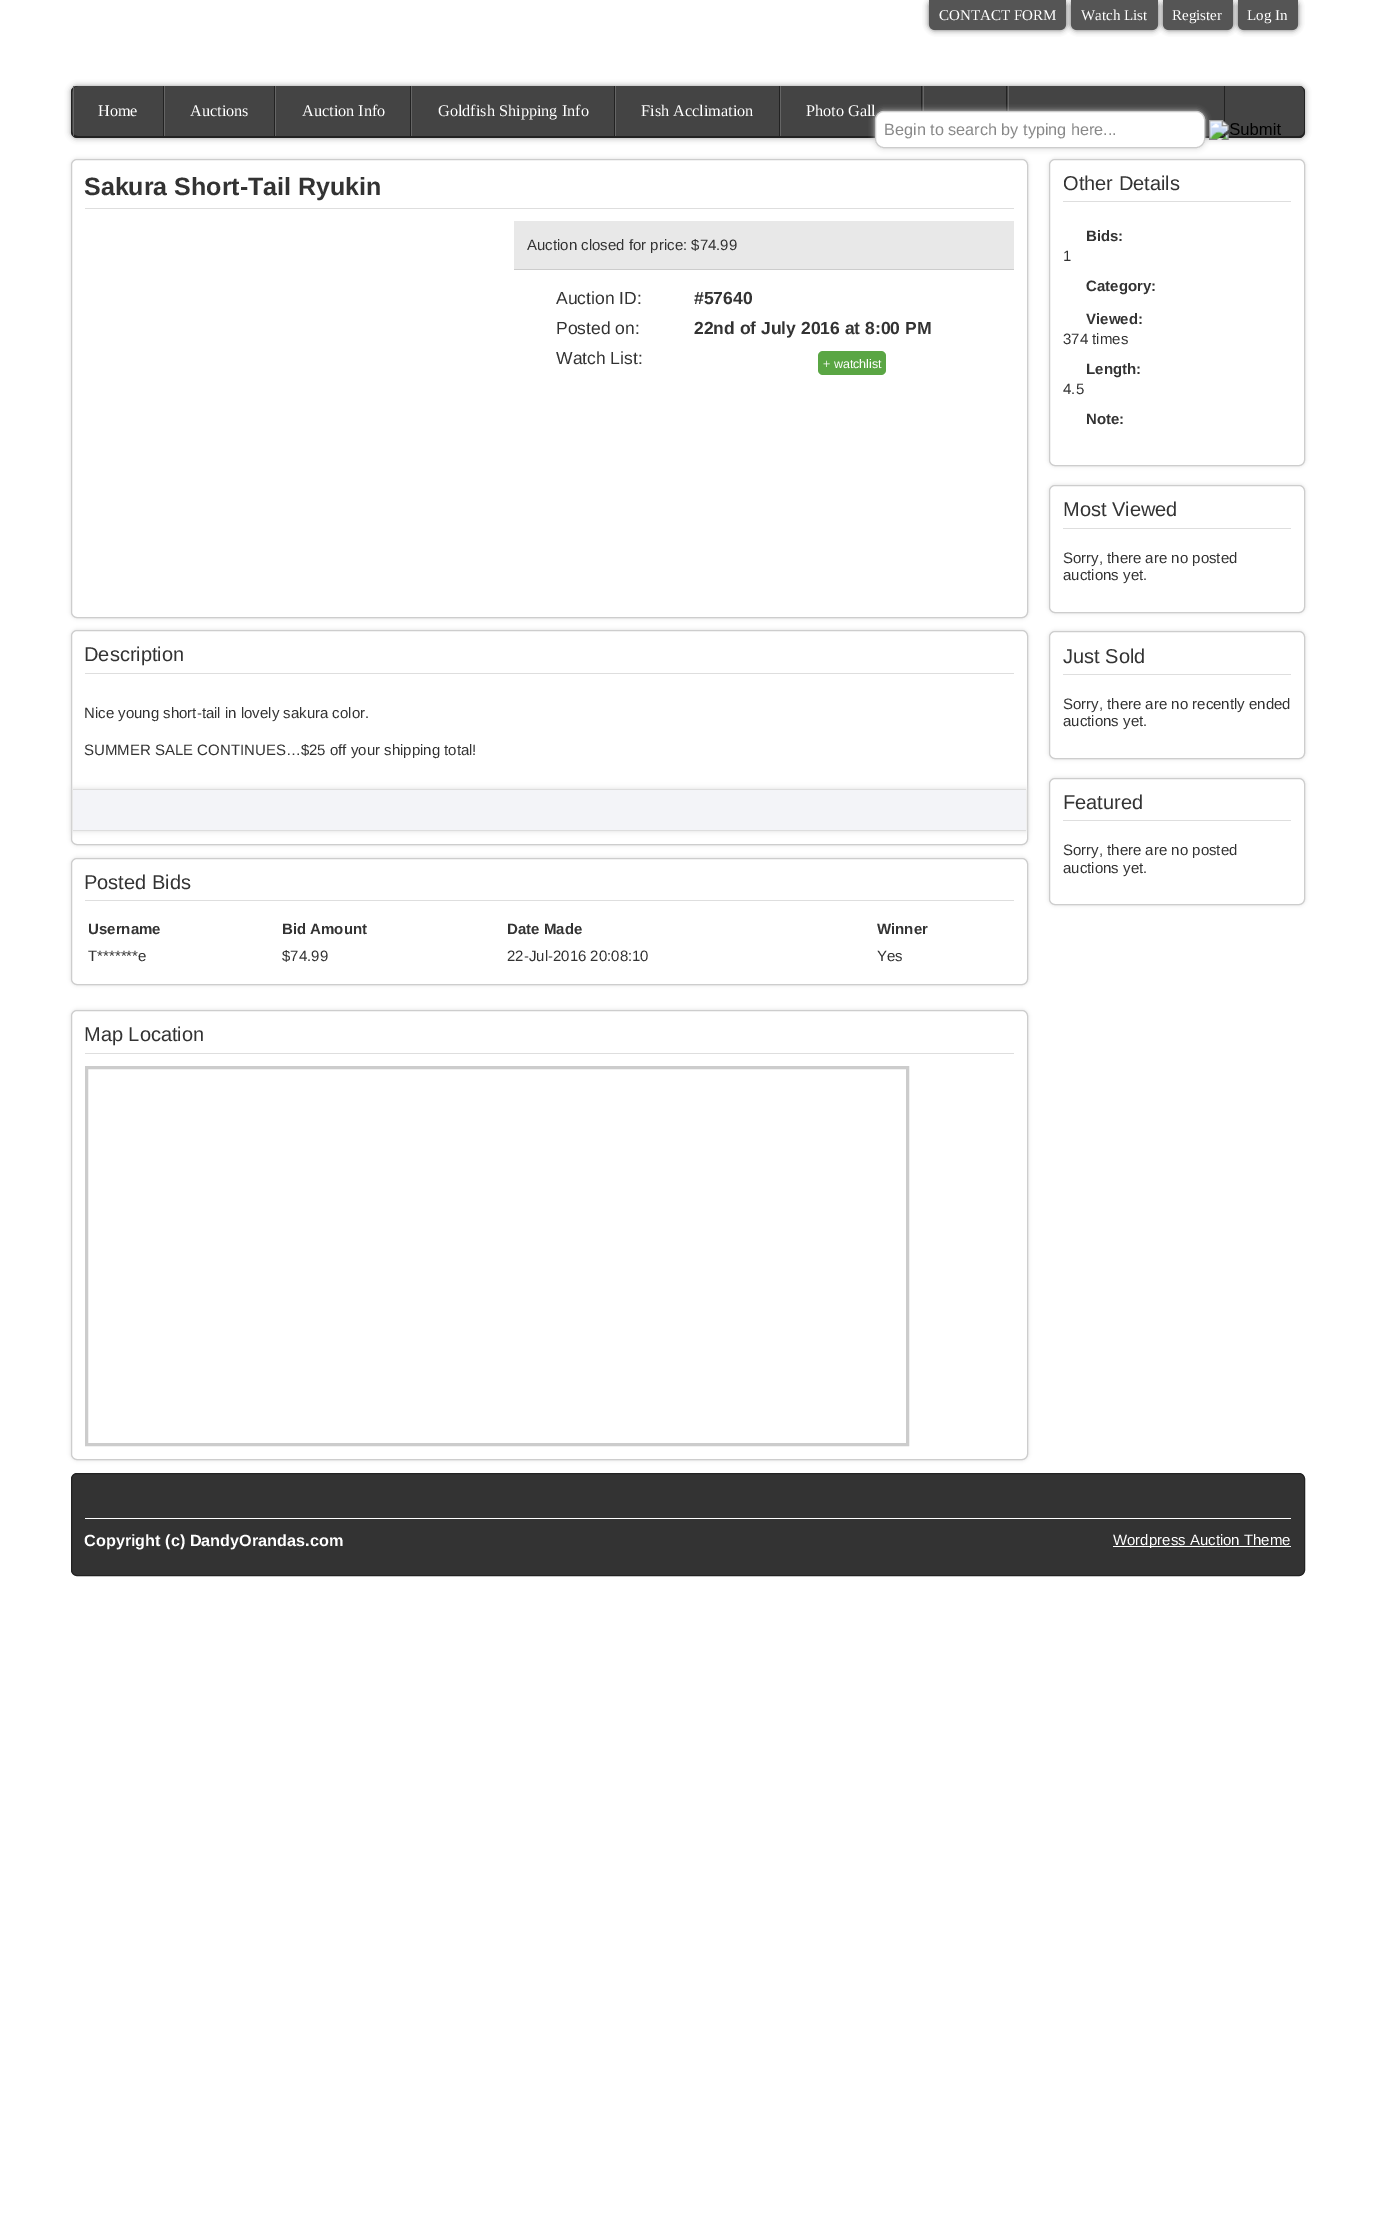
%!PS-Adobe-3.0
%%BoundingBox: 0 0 1374 2224
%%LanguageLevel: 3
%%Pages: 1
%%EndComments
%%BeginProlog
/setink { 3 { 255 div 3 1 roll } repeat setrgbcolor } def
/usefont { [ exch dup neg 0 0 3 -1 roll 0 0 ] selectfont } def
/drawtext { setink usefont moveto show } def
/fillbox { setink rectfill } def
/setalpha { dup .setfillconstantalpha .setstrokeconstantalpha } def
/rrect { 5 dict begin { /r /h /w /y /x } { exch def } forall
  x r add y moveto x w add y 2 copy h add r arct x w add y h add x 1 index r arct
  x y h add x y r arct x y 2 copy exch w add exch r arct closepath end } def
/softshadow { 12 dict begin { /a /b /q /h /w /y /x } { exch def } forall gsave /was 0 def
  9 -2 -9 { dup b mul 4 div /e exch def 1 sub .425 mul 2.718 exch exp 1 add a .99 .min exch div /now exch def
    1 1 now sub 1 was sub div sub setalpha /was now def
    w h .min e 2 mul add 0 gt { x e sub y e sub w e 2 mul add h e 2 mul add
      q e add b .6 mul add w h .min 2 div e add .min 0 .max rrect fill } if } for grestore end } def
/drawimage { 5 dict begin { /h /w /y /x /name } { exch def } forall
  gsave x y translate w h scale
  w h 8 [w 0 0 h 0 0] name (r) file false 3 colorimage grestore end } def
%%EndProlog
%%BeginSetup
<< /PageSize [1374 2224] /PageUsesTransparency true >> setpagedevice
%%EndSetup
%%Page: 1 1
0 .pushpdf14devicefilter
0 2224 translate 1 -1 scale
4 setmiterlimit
0 0 1374 2224 255 255 255 fillbox
153 153 153 setink
71 86 1234 52 6 3 1 softshadow
68 68 68 setink
71 86 1234 52 6 rrect fill
34 34 34 setink
78 86 moveto 1299 86 lineto 1302 86 1305 89 1305 92 curveto 1305 131 lineto 1305 135 1302 138 1299 138 curveto 78 138 lineto 74 138 71 135 71 131 curveto 71 92 lineto 71 89 74 86 78 86 curveto closepath 78 86 moveto 1299 86 lineto 1302 86 1304 89 1304 92 curveto 1304 131 lineto 1304 134 1302 136 1299 136 curveto 78 136 lineto 75 136 72 134 72 131 curveto 72 92 lineto 72 89 75 86 78 86 curveto closepath eofill
163 86 1 50 34 34 34 fillbox
73 86 1 50 101 101 101 fillbox
(Home) 98 116 /LiberationSerif-Regular 16.25 255 255 255 drawtext
274 86 1 50 34 34 34 fillbox
164 86 1 50 101 101 101 fillbox
(Auctions) 190 116 /LiberationSerif-Regular 16.25 255 255 255 drawtext
410 86 1 50 34 34 34 fillbox
275 86 1 50 101 101 101 fillbox
(Auction Info) 302 116 /LiberationSerif-Regular 16.25 255 255 255 drawtext
614 86 1 50 34 34 34 fillbox
411 86 1 50 101 101 101 fillbox
(Goldfish Shipping Info) 438 116 /LiberationSerif-Regular 16.25 255 255 255 drawtext
779 86 1 50 34 34 34 fillbox
615 86 1 50 101 101 101 fillbox
(Fish Acclimation) 641 116 /LiberationSerif-Regular 16.25 255 255 255 drawtext
921 86 1 25 34 34 34 fillbox
780 86 1 50 101 101 101 fillbox
(Photo Gall) 806 116 /LiberationSerif-Regular 16.25 255 255 255 drawtext
1006 86 1 25 34 34 34 fillbox
923 86 1 25 101 101 101 fillbox
1224 86 1 50 34 34 34 fillbox
1008 86 1 25 101 101 101 fillbox
102 102 102 setink
929 0 137 30 6 3 1 softshadow
85 85 85 setink
929 0 moveto 1066 0 lineto 1066 24 lineto 1066 27.5 1063.5 30 1060 30 curveto 935 30 lineto 931.5 30 929 27.5 929 24 curveto closepath fill
(CONTACT FORM) 939 20 /LiberationSerif-Regular 15 255 255 255 drawtext
102 102 102 setink
1071 0 87 30 6 3 1 softshadow
85 85 85 setink
1071 0 moveto 1158 0 lineto 1158 24 lineto 1158 27.5 1155.5 30 1152 30 curveto 1077 30 lineto 1073.5 30 1071 27.5 1071 24 curveto closepath fill
(Watch List) 1081 20 /LiberationSerif-Regular 15 255 255 255 drawtext
102 102 102 setink
1163 0 70 30 6 3 1 softshadow
85 85 85 setink
1163 0 moveto 1233 0 lineto 1233 24 lineto 1233 27.5 1230.5 30 1227 30 curveto 1169 30 lineto 1165.5 30 1163 27.5 1163 24 curveto closepath fill
(Register) 1172 20 /LiberationSerif-Regular 15 255 255 255 drawtext
102 102 102 setink
1238 0 60 30 6 3 1 softshadow
85 85 85 setink
1238 0 moveto 1298 0 lineto 1298 24 lineto 1298 27.5 1295.5 30 1292 30 curveto 1244 30 lineto 1240.5 30 1238 27.5 1238 24 curveto closepath fill
(Log In) 1247 20 /LiberationSerif-Regular 15 255 255 255 drawtext
206 206 206 setink
875 111 330 37 9 3 1 softshadow
255 255 255 setink
875.5 111.5 329 36 8.5 rrect gsave fill grestore
204 204 204 setink
stroke
(Begin to search by typing here...) 884 135 /LiberationSans-Regular 16.25 136 136 136 drawtext
(assets/img1.rgb) 1208 120 73 20 drawimage
221 221 221 setink
71 159 957 459 6 2 1 softshadow
255 255 255 setink
71.5 159.5 956 458 5.5 rrect gsave fill grestore
205 205 205 setink
stroke
85 208 929 1 222 222 222 fillbox
(Sakura Short-Tail Ryukin) 84 195 /LiberationSans-Bold 25 51 51 51 drawtext
514 221 500 48 232 232 232 fillbox
514 269 500 1 204 204 204 fillbox
(Auction closed for price: $74.99) 527 250 /LiberationSans-Regular 15 51 51 51 drawtext
(Auction ID:) 556 304 /LiberationSans-Regular 17.5 51 51 51 drawtext
(#57640) 694 304 /LiberationSans-Bold 17.5 51 51 51 drawtext
(Posted on:) 556 334 /LiberationSans-Regular 17.5 51 51 51 drawtext
(22nd of July 2016 at 8:00 PM) 694 334 /LiberationSans-Bold 17.5 51 51 51 drawtext
(Watch List:) 556 364 /LiberationSans-Regular 17.5 51 51 51 drawtext
90 166 68 setink
818 351 68 24 5 rrect fill
(+ watchlist) 823 368 /LiberationSans-Regular 12.5 255 255 255 drawtext
221 221 221 setink
71 630 957 215 6 2 1 softshadow
255 255 255 setink
71.5 630.5 956 214 5.5 rrect gsave fill grestore
205 205 205 setink
stroke
85 673 929 1 222 222 222 fillbox
(Description) 84 661 /LiberationSans-Regular 20 51 51 51 drawtext
(Nice young short-tail in lovely sakura color.) 84 718 /LiberationSans-Regular 15 51 51 51 drawtext
(SUMMER SALE CONTINUES…$25 off your shipping total!) 84 755 /LiberationSans-Regular 15 51 51 51 drawtext
221 221 221 setink
73 789 953 42 0 3 1 softshadow
73 790 953 40 243 244 248 fillbox
73 789 953 1 221 221 221 fillbox
73 830 953 1 221 221 221 fillbox
71 858 957 127 6 2 1 softshadow
255 255 255 setink
71.5 858.5 956 126 5.5 rrect gsave fill grestore
205 205 205 setink
stroke
85 900 929 1 222 222 222 fillbox
(Posted Bids) 84 889 /LiberationSans-Regular 20 51 51 51 drawtext
(Username) 88 934 /LiberationSans-Bold 15 51 51 51 drawtext
(Bid Amount) 282 934 /LiberationSans-Bold 15 51 51 51 drawtext
(Date Made) 507 934 /LiberationSans-Bold 15 51 51 51 drawtext
(Winner) 877 934 /LiberationSans-Bold 15 51 51 51 drawtext
(T*******e) 88 961 /LiberationSans-Regular 15 51 51 51 drawtext
($74.99) 282 961 /LiberationSans-Regular 15 51 51 51 drawtext
(22-Jul-2016 20:08:10) 507 961 /LiberationSans-Regular 15 51 51 51 drawtext
(Yes) 877 961 /LiberationSans-Regular 15 51 51 51 drawtext
221 221 221 setink
71 1010 957 450 6 2 1 softshadow
255 255 255 setink
71.5 1010.5 956 449 5.5 rrect gsave fill grestore
205 205 205 setink
stroke
85 1053 929 1 222 222 222 fillbox
(Map Location) 84 1041 /LiberationSans-Regular 20 51 51 51 drawtext
204 204 204 setink
3 setlinewidth
86.5 1067.5 821 377 rectstroke
221 221 221 setink
1049 159 256 307 6 2 1 softshadow
255 255 255 setink
1049.5 159.5 255 306 5.5 rrect gsave fill grestore
205 205 205 setink
1 setlinewidth
stroke
1063 201 228 1 222 222 222 fillbox
(Other Details) 1063 190 /LiberationSans-Regular 20 51 51 51 drawtext
(Bids:) 1086 241 /LiberationSans-Bold 15 51 51 51 drawtext
(1) 1063 261 /LiberationSans-Regular 15 51 51 51 drawtext
(Category:) 1086 291 /LiberationSans-Bold 15 51 51 51 drawtext
(Viewed:) 1086 324 /LiberationSans-Bold 15 51 51 51 drawtext
(374 times) 1063 344 /LiberationSans-Regular 15 51 51 51 drawtext
(Length:) 1086 374 /LiberationSans-Bold 15 51 51 51 drawtext
(4.5) 1063 394 /LiberationSans-Regular 15 51 51 51 drawtext
(Note:) 1086 424 /LiberationSans-Bold 15 51 51 51 drawtext
221 221 221 setink
1049 485 256 128 6 2 1 softshadow
255 255 255 setink
1049.5 485.5 255 127 5.5 rrect gsave fill grestore
205 205 205 setink
stroke
1063 528 228 1 222 222 222 fillbox
(Most Viewed) 1063 516 /LiberationSans-Regular 20 51 51 51 drawtext
(Sorry, there are no posted) 1063 563 /LiberationSans-Regular 15 51 51 51 drawtext
(auctions yet.) 1063 580 /LiberationSans-Regular 15 51 51 51 drawtext
221 221 221 setink
1049 631 256 128 6 2 1 softshadow
255 255 255 setink
1049.5 631.5 255 127 5.5 rrect gsave fill grestore
205 205 205 setink
stroke
1063 674 228 1 222 222 222 fillbox
(Just Sold) 1063 663 /LiberationSans-Regular 20 51 51 51 drawtext
(Sorry, there are no recently ended) 1063 709 /LiberationSans-Regular 15 51 51 51 drawtext
(auctions yet.) 1063 726 /LiberationSans-Regular 15 51 51 51 drawtext
221 221 221 setink
1049 778 256 127 6 2 1 softshadow
255 255 255 setink
1049.5 778.5 255 126 5.5 rrect gsave fill grestore
205 205 205 setink
stroke
1063 820 228 1 222 222 222 fillbox
(Featured) 1063 809 /LiberationSans-Regular 20 51 51 51 drawtext
(Sorry, there are no posted) 1063 855 /LiberationSans-Regular 15 51 51 51 drawtext
(auctions yet.) 1063 873 /LiberationSans-Regular 15 51 51 51 drawtext
71.5 1473.5 1233 102 5.5 rrect gsave fill grestore
34 34 34 setink
stroke
85 1518 1206 1 255 255 255 fillbox
(Copyright \(c\) DandyOrandas.com) 84 1546 /LiberationSans-Bold 16.25 255 255 255 drawtext
1113 1546 178 1 255 255 255 fillbox
(Wordpress Auction Theme) 1113 1545 /LiberationSans-Regular 15 255 255 255 drawtext
.poppdf14devicefilter showpage
%%EOF
